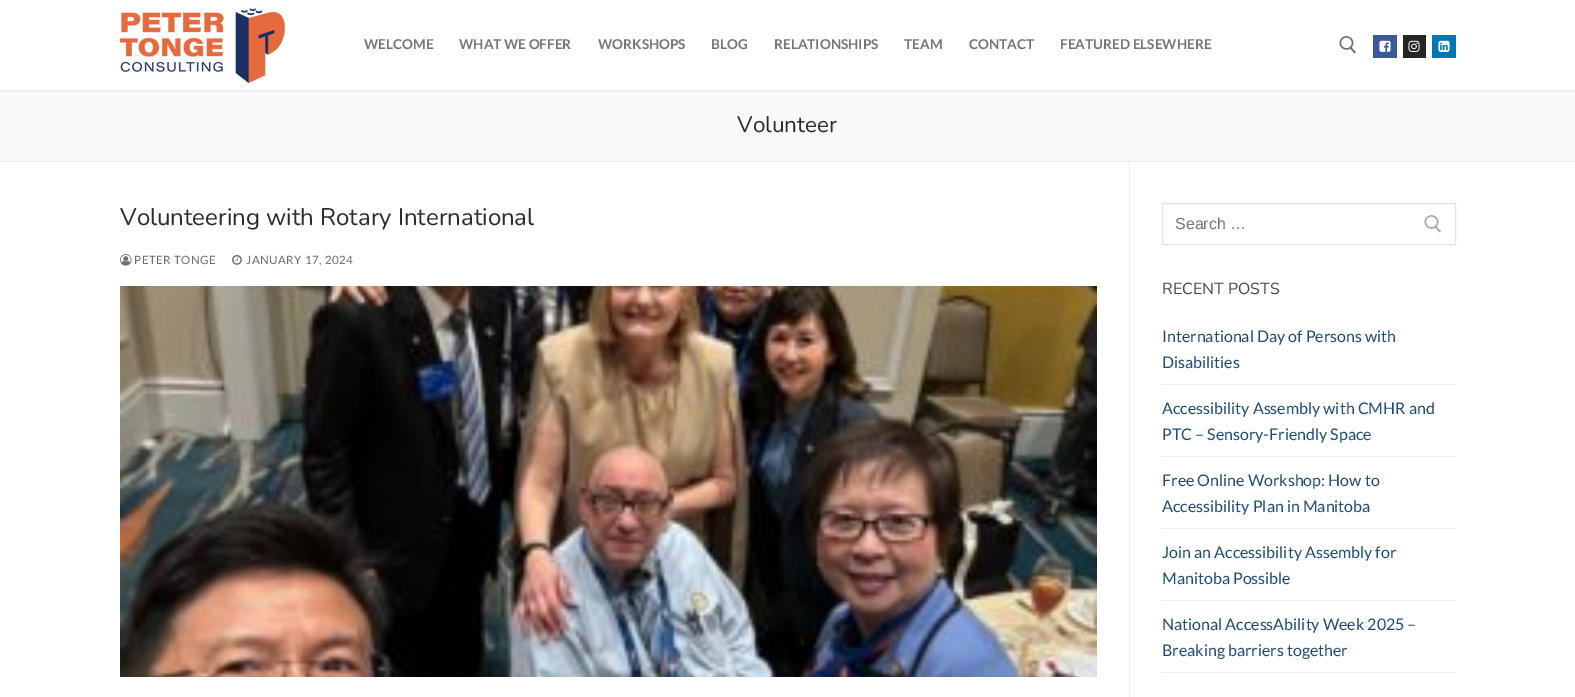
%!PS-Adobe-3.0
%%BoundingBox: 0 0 1575 697
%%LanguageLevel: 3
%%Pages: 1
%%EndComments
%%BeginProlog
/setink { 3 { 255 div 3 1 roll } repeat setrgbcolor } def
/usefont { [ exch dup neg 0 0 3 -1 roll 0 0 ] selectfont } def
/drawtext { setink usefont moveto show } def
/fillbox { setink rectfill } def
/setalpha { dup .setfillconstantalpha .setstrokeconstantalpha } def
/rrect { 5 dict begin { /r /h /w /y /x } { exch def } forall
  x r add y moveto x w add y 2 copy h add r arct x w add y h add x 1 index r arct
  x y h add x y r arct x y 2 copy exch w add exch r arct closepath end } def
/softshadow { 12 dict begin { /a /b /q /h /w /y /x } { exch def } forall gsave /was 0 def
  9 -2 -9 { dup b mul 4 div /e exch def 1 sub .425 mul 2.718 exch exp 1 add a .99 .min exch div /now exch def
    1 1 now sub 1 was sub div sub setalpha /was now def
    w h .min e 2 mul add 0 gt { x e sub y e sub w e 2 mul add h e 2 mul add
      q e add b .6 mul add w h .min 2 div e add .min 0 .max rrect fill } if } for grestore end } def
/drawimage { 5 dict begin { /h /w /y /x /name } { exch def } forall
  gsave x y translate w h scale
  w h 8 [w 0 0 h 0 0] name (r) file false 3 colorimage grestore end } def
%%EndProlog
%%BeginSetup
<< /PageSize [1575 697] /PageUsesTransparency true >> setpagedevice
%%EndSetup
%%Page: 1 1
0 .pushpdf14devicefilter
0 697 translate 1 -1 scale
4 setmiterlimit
0 0 1575 697 255 255 255 fillbox
0 90 1575 71 249 249 249 fillbox
gsave
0 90 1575 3 rectclip
225 229 234 setink
0 1 1575 90 0 1 1 softshadow
grestore
(assets/img1.rgb) 120 8 165 75 drawimage
(WELCOME) 364 49 /Lato-Bold 13.6 117 117 117 drawtext
(WHAT WE OFFER) 459 49 /Lato-Bold 13.6 117 117 117 drawtext
(WORKSHOPS) 598 49 /Lato-Bold 13.6 117 117 117 drawtext
(BLOG) 711 49 /Lato-Bold 13.6 117 117 117 drawtext
(RELATIONSHIPS) 774 49 /Lato-Bold 13.6 117 117 117 drawtext
(TEAM) 904 49 /Lato-Bold 13.6 117 117 117 drawtext
(CONTACT) 969 49 /Lato-Bold 13.6 117 117 117 drawtext
(FEATURED ELSEWHERE) 1060 49 /Lato-Bold 13.6 117 117 117 drawtext
(assets/img2.rgb) 1339 36 17 18 drawimage
1373 35 24 23 59 89 152 fillbox
(assets/img3.rgb) 1379 40 12 12 drawimage
1403 35 23 23 38 38 38 fillbox
(assets/img4.rgb) 1408 40 12 12 drawimage
1432 35 24 23 0 119 181 fillbox
(assets/img5.rgb) 1438 40 12 12 drawimage
0 161 1575 1 234 236 238 fillbox
(Volunteer) 737 132 /Nunito-Regular 22.5 43 43 43 drawtext
1129 162 1 535 234 236 238 fillbox
(Volunteering with Rotary International) 120 225 /Nunito-Regular 24 43 43 43 drawtext
(assets/img6.rgb) 120 254 12 12 drawimage
/Lato-Regular 11.5 usefont
109 109 109 setink
134 264 moveto 0.5 0 (PETER TONGE) ashow
(assets/img7.rgb) 232 255 10 10 drawimage
246 264 moveto 0.5 0 (JANUARY 17, 2024) ashow
(assets/img8.rgb) 120 286 977 391 drawimage
229 229 229 setink
1162.5 203.5 293 41 0.5 rrect stroke
(Search …) 1175 229 /LiberationSans-Regular 16 117 117 117 drawtext
(assets/img9.rgb) 1424 215 17 18 drawimage
(RECENT POSTS) 1162 294 /Nunito-Regular 16 68 68 68 drawtext
1162 384 294 1 234 236 238 fillbox
(International Day of Persons with) 1162 342 /Lato-Regular 16 30 75 117 drawtext
(Disabilities) 1162 368 /Lato-Regular 16 30 75 117 drawtext
1162 456 294 1 234 236 238 fillbox
(Accessibility Assembly with CMHR and) 1162 414 /Lato-Regular 16 30 75 117 drawtext
(PTC – Sensory-Friendly Space) 1162 440 /Lato-Regular 16 30 75 117 drawtext
1162 528 294 1 234 236 238 fillbox
(Free Online Workshop: How to) 1162 486 /Lato-Regular 16 30 75 117 drawtext
(Accessibility Plan in Manitoba) 1162 512 /Lato-Regular 16 30 75 117 drawtext
1162 600 294 1 234 236 238 fillbox
(Join an Accessibility Assembly for) 1162 558 /Lato-Regular 16 30 75 117 drawtext
(Manitoba Possible) 1162 584 /Lato-Regular 16 30 75 117 drawtext
1162 672 294 1 234 236 238 fillbox
(National AccessAbility Week 2025 –) 1162 630 /Lato-Regular 16 30 75 117 drawtext
(Breaking barriers together) 1162 656 /Lato-Regular 16 30 75 117 drawtext
.poppdf14devicefilter showpage
%%EOF
